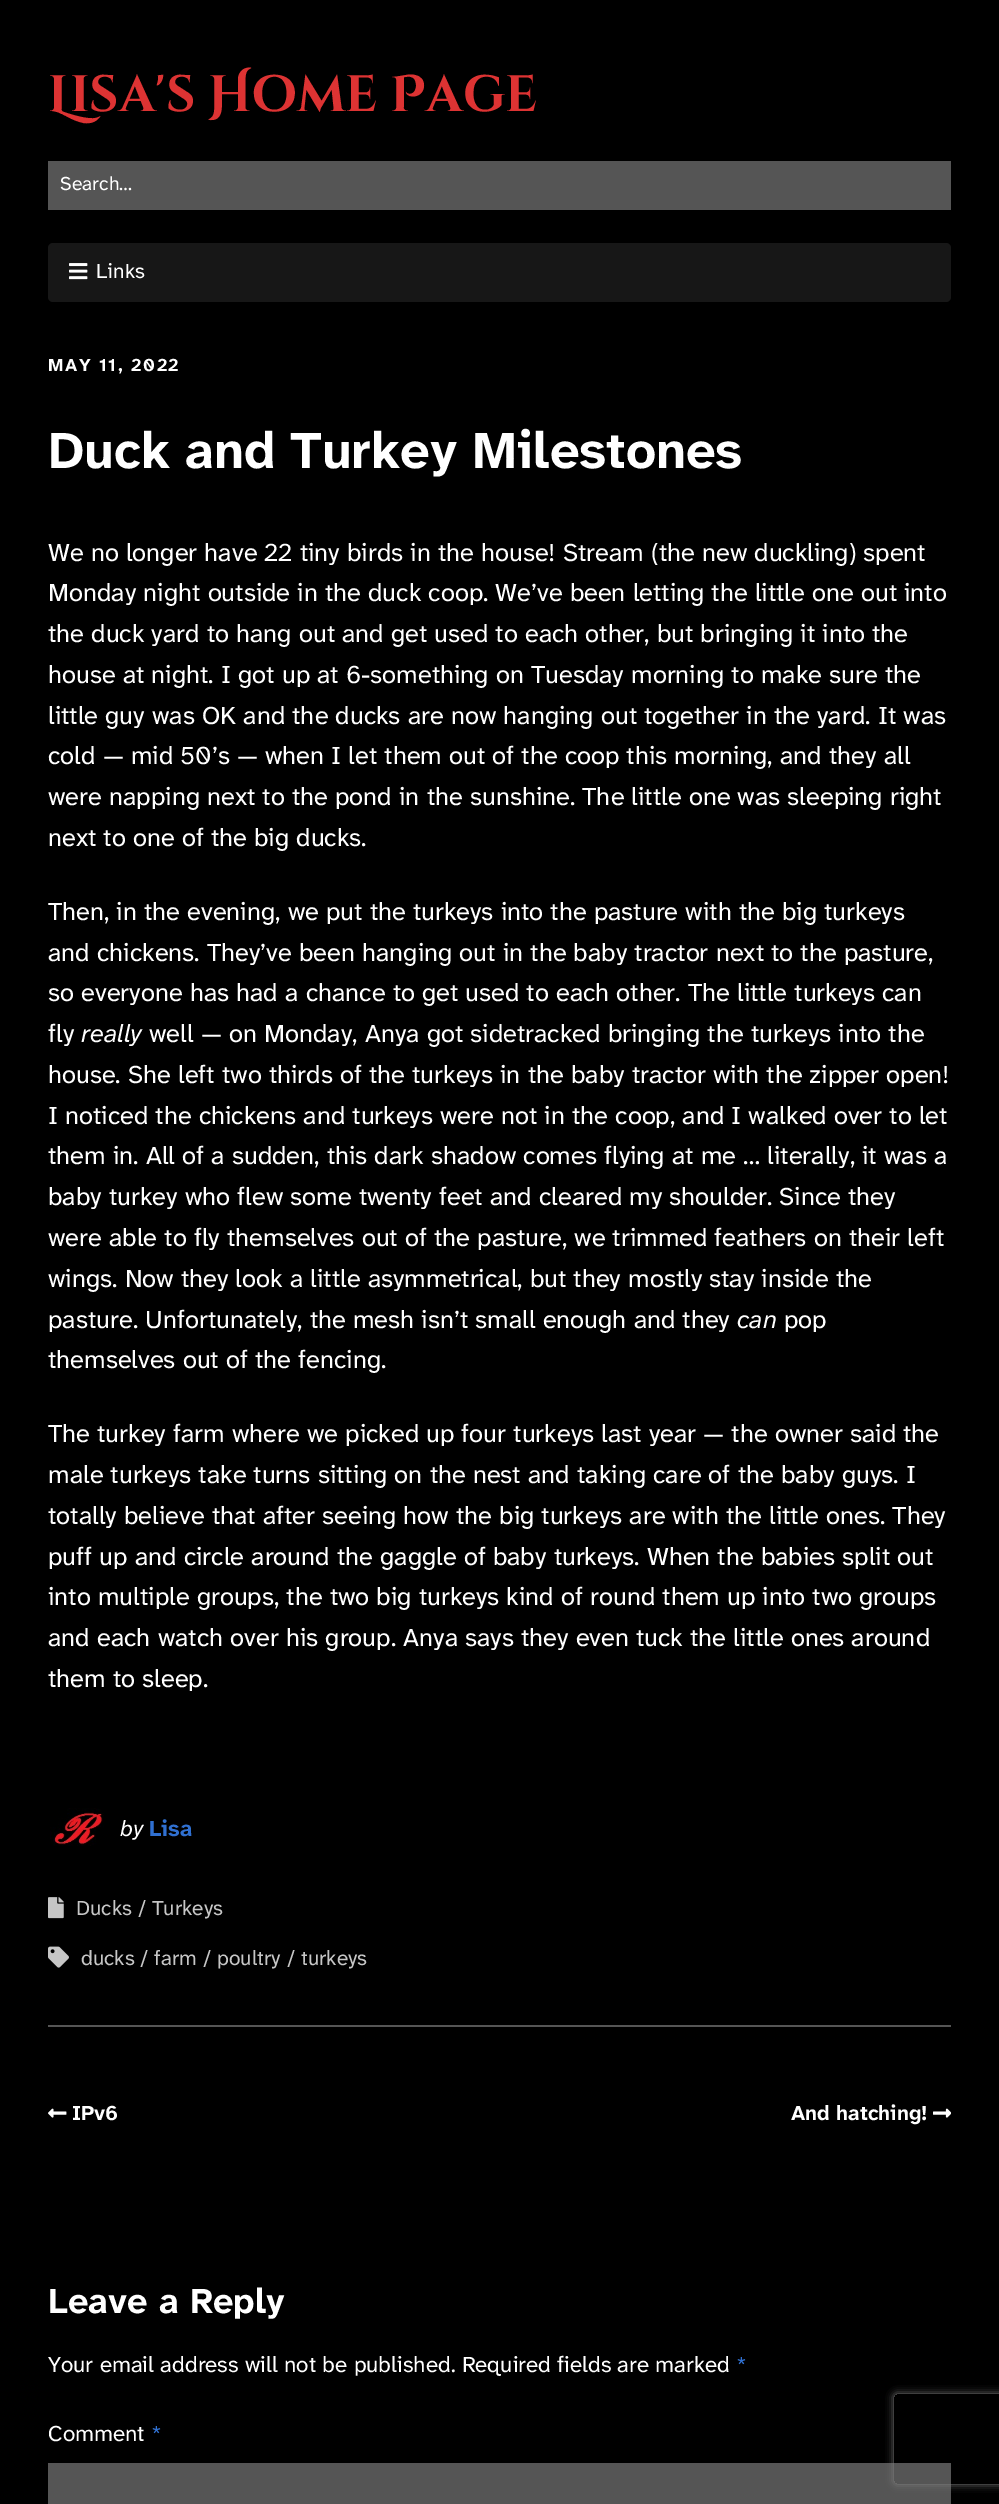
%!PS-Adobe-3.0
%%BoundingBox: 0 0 999 2504
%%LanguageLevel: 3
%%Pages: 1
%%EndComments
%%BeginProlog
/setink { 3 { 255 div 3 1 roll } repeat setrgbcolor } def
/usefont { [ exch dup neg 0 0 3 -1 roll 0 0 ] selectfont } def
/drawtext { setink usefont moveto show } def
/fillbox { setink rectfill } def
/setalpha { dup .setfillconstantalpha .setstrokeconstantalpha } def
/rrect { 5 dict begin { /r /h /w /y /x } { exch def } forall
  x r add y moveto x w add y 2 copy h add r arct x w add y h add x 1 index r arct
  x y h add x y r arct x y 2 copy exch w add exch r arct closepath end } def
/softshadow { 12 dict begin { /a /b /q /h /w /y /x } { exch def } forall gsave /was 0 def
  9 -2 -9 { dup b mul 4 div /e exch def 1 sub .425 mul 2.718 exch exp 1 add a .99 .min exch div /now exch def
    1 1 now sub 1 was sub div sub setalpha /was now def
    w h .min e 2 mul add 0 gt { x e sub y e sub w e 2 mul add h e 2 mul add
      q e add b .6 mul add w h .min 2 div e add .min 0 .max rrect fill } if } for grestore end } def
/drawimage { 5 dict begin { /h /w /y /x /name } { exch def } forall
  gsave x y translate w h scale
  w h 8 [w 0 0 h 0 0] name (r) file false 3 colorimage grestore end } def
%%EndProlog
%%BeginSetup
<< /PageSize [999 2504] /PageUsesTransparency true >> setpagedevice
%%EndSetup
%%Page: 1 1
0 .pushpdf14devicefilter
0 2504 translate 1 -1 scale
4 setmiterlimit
0 0 999 2504 0 0 0 fillbox
(Lisa's Home Page) 48 111 /CinzelDecorative-Bold 51 221 51 51 drawtext
48 161 903 49 85 85 85 fillbox
(Search…) 60 190 /AtkinsonHyperlegibleNext-Regular 19.5 255 255 255 drawtext
23 23 23 setink
48 243 903 59 5 rrect fill
(assets/img1.rgb) 69 263 19 17 drawimage
(Links) 96 278 /AtkinsonHyperlegible-Regular 21 255 255 255 drawtext
48 2025 903 2 85 85 85 fillbox
/AtkinsonHyperlegibleNext-Bold 18 usefont
255 255 255 setink
48 371 moveto 1.5 0 (MAY 11, 2022) ashow
/AtkinsonHyperlegibleNext-Bold 52.5 usefont
48 468 moveto -1.5 0 32 (Duck and Turkey Milestones) widthshow
(We no longer have 22 tiny birds in the house! Stream \(the new duckling\) spent) 48 561 /AtkinsonHyperlegibleNext-Regular 25.5 255 255 255 drawtext
(Monday night outside in the duck coop. We’ve been letting the little one out into) 48 601 /AtkinsonHyperlegibleNext-Regular 25.5 255 255 255 drawtext
(the duck yard to hang out and get used to each other, but bringing it into the) 48 642 /AtkinsonHyperlegibleNext-Regular 25.5 255 255 255 drawtext
(house at night. I got up at 6-something on Tuesday morning to make sure the) 48 683 /AtkinsonHyperlegibleNext-Regular 25.5 255 255 255 drawtext
(little guy was OK and the ducks are now hanging out together in the yard. It was) 48 724 /AtkinsonHyperlegibleNext-Regular 25.5 255 255 255 drawtext
(cold — mid 50’s — when I let them out of the coop this morning, and they all) 48 764 /AtkinsonHyperlegibleNext-Regular 25.5 255 255 255 drawtext
(were napping next to the pond in the sunshine. The little one was sleeping right) 48 805 /AtkinsonHyperlegibleNext-Regular 25.5 255 255 255 drawtext
(next to one of the big ducks.) 48 846 /AtkinsonHyperlegibleNext-Regular 25.5 255 255 255 drawtext
(Then, in the evening, we put the turkeys into the pasture with the big turkeys) 48 920 /AtkinsonHyperlegibleNext-Regular 25.5 255 255 255 drawtext
(and chickens. They’ve been hanging out in the baby tractor next to the pasture,) 48 961 /AtkinsonHyperlegibleNext-Regular 25.5 255 255 255 drawtext
(so everyone has had a chance to get used to each other. The little turkeys can) 48 1001 /AtkinsonHyperlegibleNext-Regular 25.5 255 255 255 drawtext
(fly) 48 1042 /AtkinsonHyperlegibleNext-Regular 25.5 255 255 255 drawtext
(really) 81 1042 /AtkinsonHyperlegibleNext-Italic 25.5 255 255 255 drawtext
(well — on Monday, Anya got sidetracked bringing the turkeys into the) 149 1042 /AtkinsonHyperlegibleNext-Regular 25.5 255 255 255 drawtext
(house. She left two thirds of the turkeys in the baby tractor with the zipper open!) 48 1083 /AtkinsonHyperlegibleNext-Regular 25.5 255 255 255 drawtext
(I noticed the chickens and turkeys were not in the coop, and I walked over to let) 48 1124 /AtkinsonHyperlegibleNext-Regular 25.5 255 255 255 drawtext
(them in. All of a sudden, this dark shadow comes flying at me … literally, it was a) 48 1164 /AtkinsonHyperlegibleNext-Regular 25.5 255 255 255 drawtext
(baby turkey who flew some twenty feet and cleared my shoulder. Since they) 48 1205 /AtkinsonHyperlegibleNext-Regular 25.5 255 255 255 drawtext
(were able to fly themselves out of the pasture, we trimmed feathers on their left) 48 1246 /AtkinsonHyperlegibleNext-Regular 25.5 255 255 255 drawtext
(wings. Now they look a little asymmetrical, but they mostly stay inside the) 48 1287 /AtkinsonHyperlegibleNext-Regular 25.5 255 255 255 drawtext
(pasture. Unfortunately, the mesh isn’t small enough and they) 48 1328 /AtkinsonHyperlegibleNext-Regular 25.5 255 255 255 drawtext
(can) 737 1328 /AtkinsonHyperlegibleNext-Italic 25.5 255 255 255 drawtext
(pop) 784 1328 /AtkinsonHyperlegibleNext-Regular 25.5 255 255 255 drawtext
(themselves out of the fencing.) 48 1368 /AtkinsonHyperlegibleNext-Regular 25.5 255 255 255 drawtext
(The turkey farm where we picked up four turkeys last year — the owner said the) 48 1442 /AtkinsonHyperlegibleNext-Regular 25.5 255 255 255 drawtext
(male turkeys take turns sitting on the nest and taking care of the baby guys. I) 48 1483 /AtkinsonHyperlegibleNext-Regular 25.5 255 255 255 drawtext
(totally believe that after seeing how the big turkeys are with the little ones. They) 48 1524 /AtkinsonHyperlegibleNext-Regular 25.5 255 255 255 drawtext
(puff up and circle around the gaggle of baby turkeys. When the babies split out) 48 1565 /AtkinsonHyperlegibleNext-Regular 25.5 255 255 255 drawtext
(into multiple groups, the two big turkeys kind of round them up into two groups) 48 1605 /AtkinsonHyperlegibleNext-Regular 25.5 255 255 255 drawtext
(and each watch over his group. Anya says they even tuck the little ones around) 48 1646 /AtkinsonHyperlegibleNext-Regular 25.5 255 255 255 drawtext
(them to sleep.) 48 1687 /AtkinsonHyperlegibleNext-Regular 25.5 255 255 255 drawtext
(assets/img2.rgb) 50 1808 54 38 drawimage
(by) 120 1836 /AtkinsonHyperlegibleNext-Italic 22.5 255 255 255 drawtext
(Lisa) 149 1836 /AtkinsonHyperlegibleNext-Bold 22.5 48 112 209 drawtext
(assets/img3.rgb) 48 1897 16 22 drawimage
(Ducks / Turkeys) 76 1915 /AtkinsonHyperlegibleNext-Regular 21 198 198 198 drawtext
(assets/img4.rgb) 48 1946 21 22 drawimage
(ducks / farm / poultry / turkeys) 81 1965 /AtkinsonHyperlegibleNext-Regular 21 198 198 198 drawtext
(assets/img5.rgb) 48 2108 19 10 drawimage
(IPv6) 72 2120 /AtkinsonHyperlegibleNext-Bold 21 255 255 255 drawtext
(And hatching!) 791 2120 /AtkinsonHyperlegibleNext-Bold 21 255 255 255 drawtext
(assets/img6.rgb) 933 2108 18 10 drawimage
(Leave a Reply) 48 2313 /AtkinsonHyperlegibleNext-Bold 36 255 255 255 drawtext
(Your email address will not be published. Required fields are marked) 48 2372 /AtkinsonHyperlegibleNext-Regular 22.5 255 255 255 drawtext
(*) 736 2372 /AtkinsonHyperlegibleNext-Regular 22.5 48 112 209 drawtext
(Comment) 48 2441 /AtkinsonHyperlegibleNext-Regular 22.5 255 255 255 drawtext
(*) 151 2441 /AtkinsonHyperlegibleNext-Regular 22.5 48 112 209 drawtext
48 2463 903 41 85 85 85 fillbox
gsave
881 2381 moveto 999 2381 lineto 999 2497 lineto 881 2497 lineto closepath 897 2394 moveto 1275 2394 lineto 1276.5 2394 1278 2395.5 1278 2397 curveto 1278 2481 lineto 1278 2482.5 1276.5 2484 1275 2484 curveto 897 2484 lineto 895.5 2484 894 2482.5 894 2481 curveto 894 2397 lineto 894 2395.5 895.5 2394 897 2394 curveto closepath eoclip newpath
128 128 128 setink
894 2394 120 90 3 4 1 softshadow
grestore
.poppdf14devicefilter showpage
%%EOF
